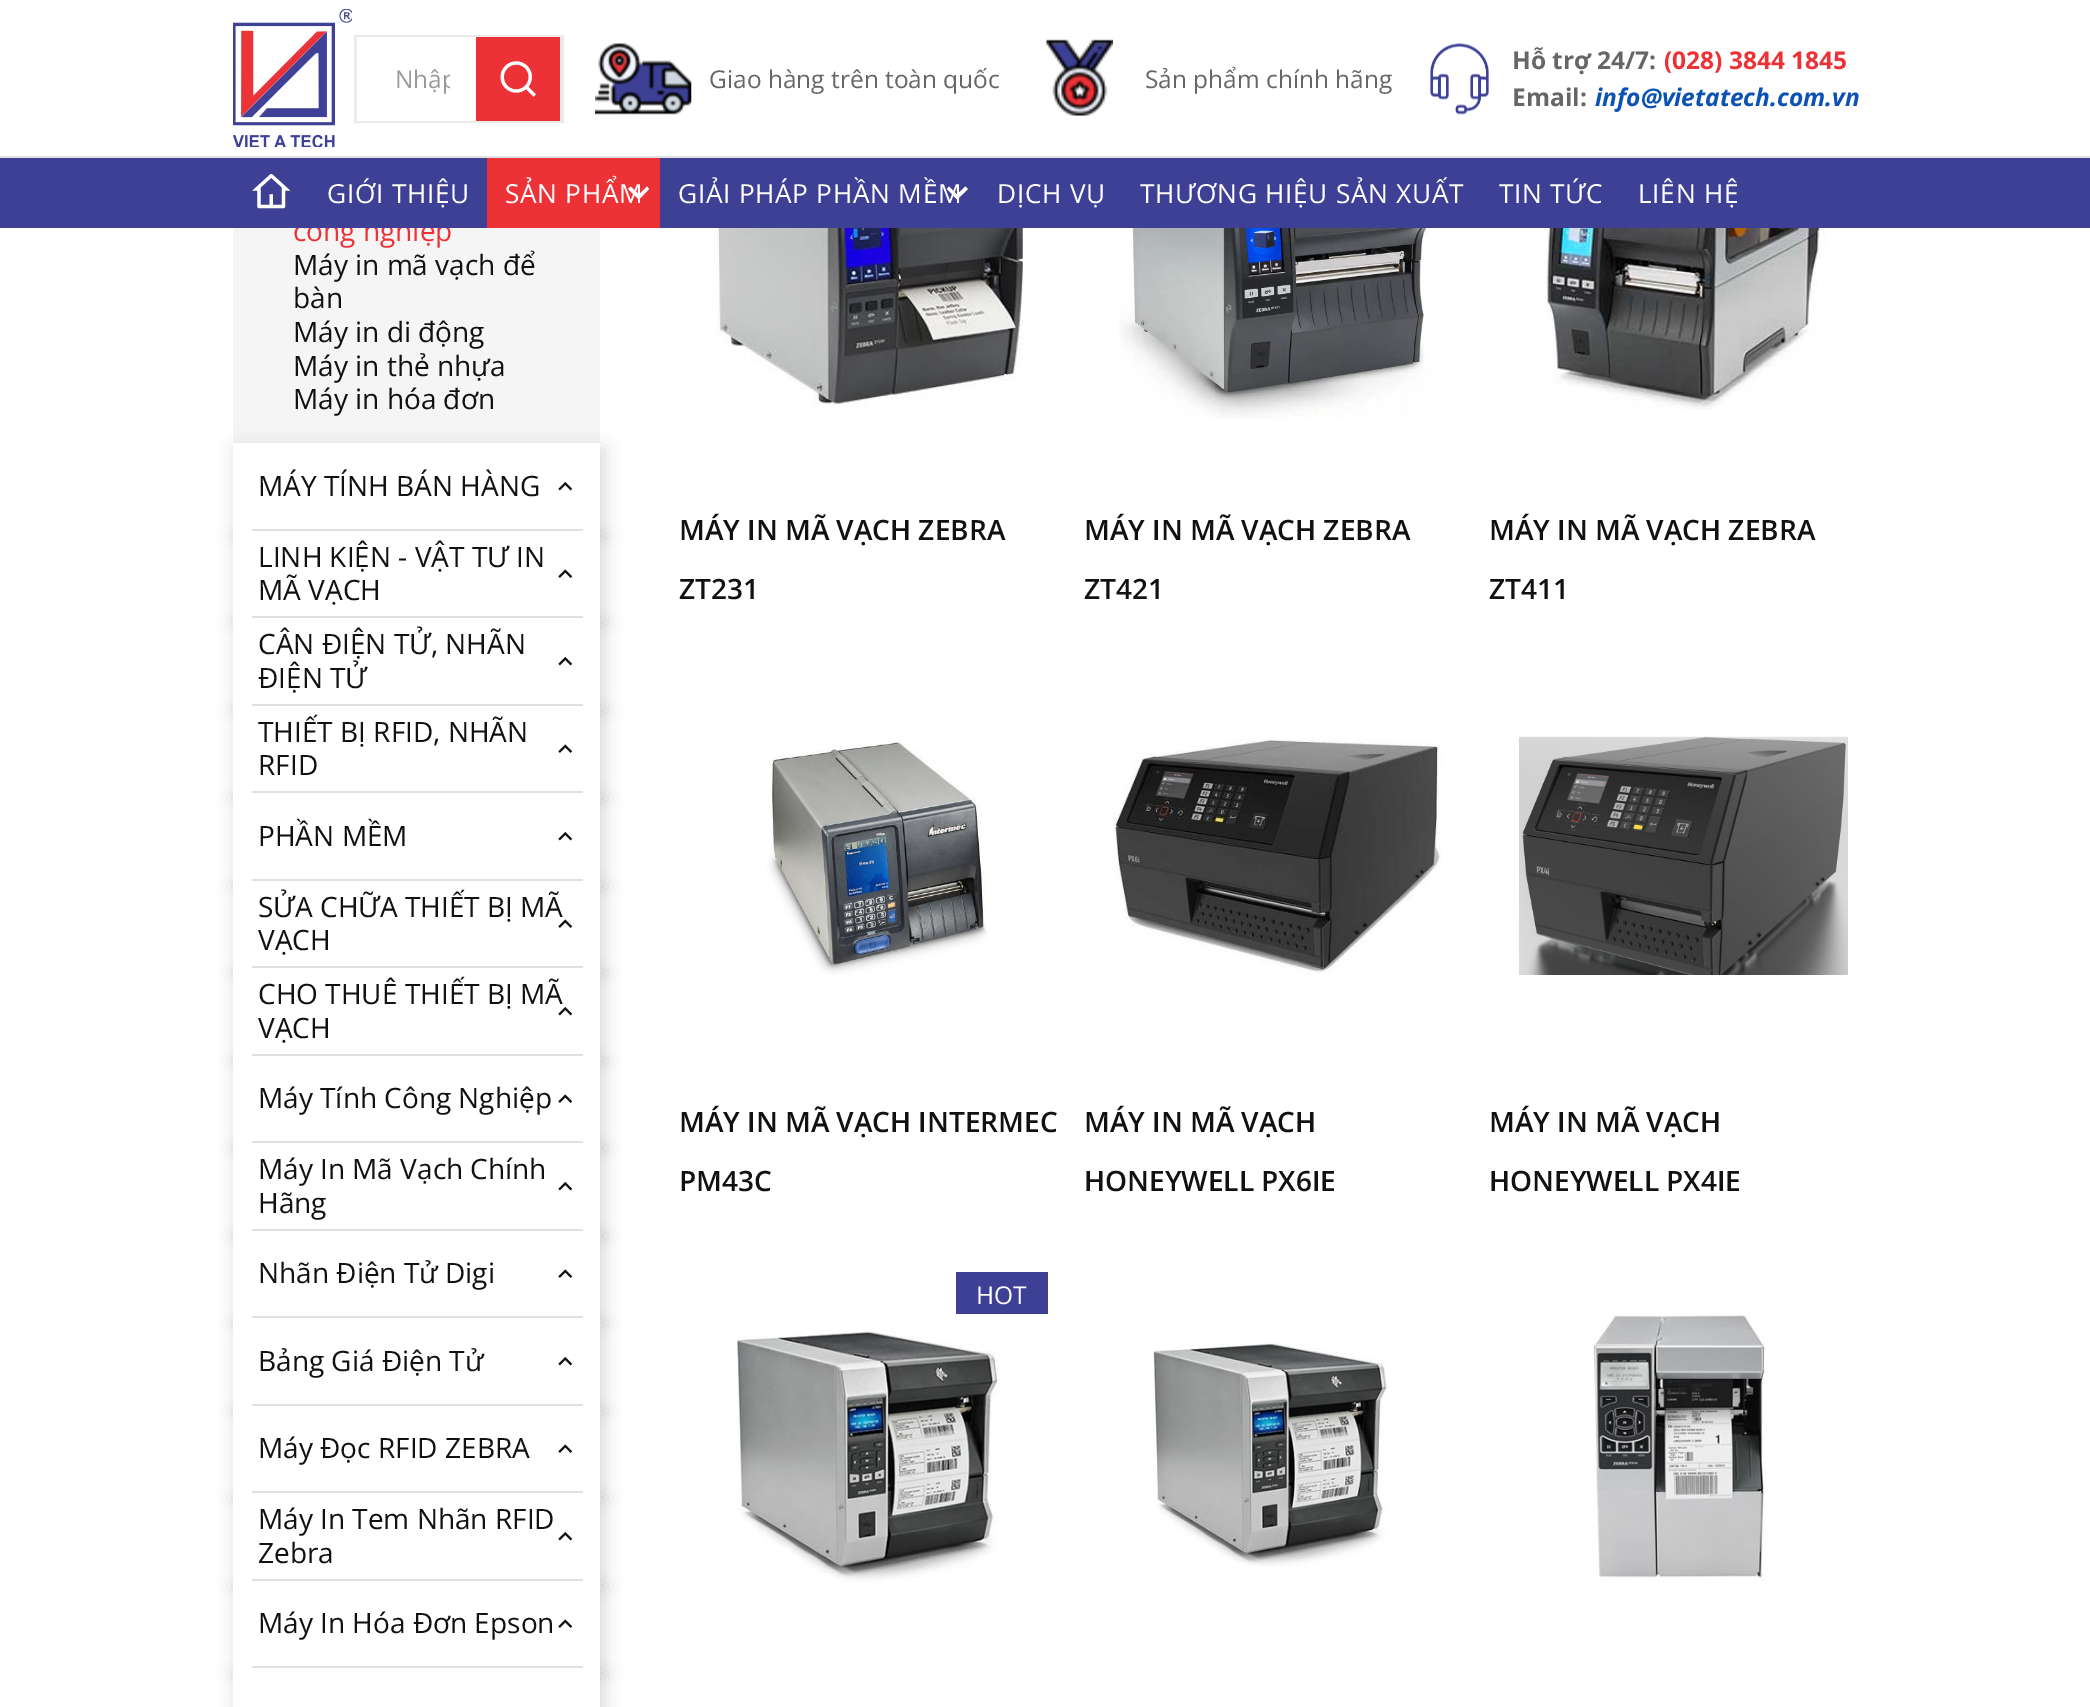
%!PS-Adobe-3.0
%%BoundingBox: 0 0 2090 1707
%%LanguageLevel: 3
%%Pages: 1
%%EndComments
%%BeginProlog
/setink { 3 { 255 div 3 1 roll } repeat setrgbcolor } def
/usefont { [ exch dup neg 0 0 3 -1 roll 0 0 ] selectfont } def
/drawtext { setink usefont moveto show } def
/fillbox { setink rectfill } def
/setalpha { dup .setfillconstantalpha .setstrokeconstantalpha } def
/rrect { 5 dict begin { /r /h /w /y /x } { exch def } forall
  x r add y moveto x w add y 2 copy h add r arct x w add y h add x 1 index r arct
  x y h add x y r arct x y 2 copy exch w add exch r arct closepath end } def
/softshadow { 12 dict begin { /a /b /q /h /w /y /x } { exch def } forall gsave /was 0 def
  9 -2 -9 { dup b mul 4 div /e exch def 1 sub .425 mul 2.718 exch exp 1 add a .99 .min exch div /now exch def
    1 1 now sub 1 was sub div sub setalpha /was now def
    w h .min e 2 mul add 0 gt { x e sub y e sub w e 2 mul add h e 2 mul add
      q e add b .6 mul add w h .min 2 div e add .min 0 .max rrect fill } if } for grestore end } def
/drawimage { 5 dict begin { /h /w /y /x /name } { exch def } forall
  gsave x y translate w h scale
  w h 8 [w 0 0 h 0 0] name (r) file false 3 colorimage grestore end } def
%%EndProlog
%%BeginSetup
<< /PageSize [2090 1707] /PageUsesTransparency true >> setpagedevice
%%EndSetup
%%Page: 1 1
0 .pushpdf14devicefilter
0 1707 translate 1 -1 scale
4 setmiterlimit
0 0 2090 1707 255 255 255 fillbox
0 156 2090 2 225 225 225 fillbox
(assets/img1.rgb) 233 9 119 138 drawimage
235 235 235 setink
4 setlinewidth
356 37 206 84 rectstroke
357 37 119 84 255 255 255 fillbox
gsave
396 61 54 34 rectclip
(Nhập) 395 88 /OpenSans-Regular 24.5 153 153 153 drawtext
grestore
476 37 84 84 236 50 55 fillbox
(assets/img2.rgb) 500 61 36 36 drawimage
(assets/img3.rgb) 595 43 97 72 drawimage
(Giao hàng trên toàn quốc) 709 88 /OpenSans-Regular 24.5 102 102 102 drawtext
(assets/img4.rgb) 1046 39 67 77 drawimage
(Sản phẩm chính hãng) 1145 88 /OpenSans-Regular 24.5 102 102 102 drawtext
(assets/img5.rgb) 1430 43 59 72 drawimage
(Hỗ trợ 24/7:) 1512 69 /OpenSans-Bold 24.5 102 102 102 drawtext
(\(028\) 3844 1845) 1664 69 /OpenSans-Bold 24.5 236 50 55 drawtext
(Email:) 1512 106 /OpenSans-Bold 24.5 102 102 102 drawtext
(info@vietatech.com.vn) 1595 106 /OpenSans-BoldItalic 24.5 11 82 180 drawtext
233 228 367 215 245 245 245 fillbox
(công nghiệp) 293 241 /OpenSans-Regular 28 236 50 55 drawtext
0 158 2090 70 62 64 149 fillbox
(assets/img6.rgb) 252 173 39 36 drawimage
/OpenSans-Regular 26.25 usefont
255 255 255 setink
327 203 moveto 0.7 0 (GIỚI THIỆU) ashow
487 158 173 70 236 50 55 fillbox
255 255 255 setink
505 203 moveto 0.7 0 (SẢN PHẨM) ashow
630.5 186.5 moveto 639 194.5 lineto 647 186.5 lineto 649 189 lineto 639 199.5 lineto 628 189 lineto closepath fill
678 203 moveto 0.7 0 (GIẢI PHÁP PHẦN MỀM) ashow
949 186.5 moveto 957 194.5 lineto 965.5 186.5 lineto 968 189 lineto 957 199.5 lineto 947 189 lineto closepath fill
997 203 moveto 0.7 0 (DỊCH VỤ) ashow
1140 203 moveto 0.7 0 (THƯƠNG HIỆU SẢN XUẤT) ashow
1499 203 moveto 0.7 0 (TIN TỨC) ashow
1638 203 moveto 0.7 0 (LIÊN HỆ) ashow
(Máy in mã vạch để) 293 275 /OpenSans-Regular 28 17 17 17 drawtext
(bàn) 293 308 /OpenSans-Regular 28 17 17 17 drawtext
(Máy in di động) 293 342 /OpenSans-Regular 28 17 17 17 drawtext
(Máy in thẻ nhựa) 293 376 /OpenSans-Regular 28 17 17 17 drawtext
(Máy in hóa đơn) 293 409 /OpenSans-Regular 28 17 17 17 drawtext
0 0 0 setink
236 448 368 88 0 9 0.15 softshadow
236 536 368 87 0 9 0.15 softshadow
236 623 368 88 0 9 0.15 softshadow
236 711 368 87 0 9 0.15 softshadow
236 798 368 88 0 9 0.15 softshadow
236 886 368 87 0 9 0.15 softshadow
236 973 368 88 0 9 0.15 softshadow
236 1061 368 87 0 9 0.15 softshadow
236 1148 368 88 0 9 0.15 softshadow
236 1236 368 87 0 9 0.15 softshadow
236 1323 368 88 0 9 0.15 softshadow
236 1411 368 87 0 9 0.15 softshadow
236 1498 368 88 0 9 0.15 softshadow
236 1586 368 87 0 9 0.15 softshadow
236 1673 368 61 0 9 0.15 softshadow
233 443 367 1264 255 255 255 fillbox
(MÁY TÍNH BÁN HÀNG) 258 496 /OpenSans-Regular 28 17 17 17 drawtext
(assets/img7.rgb) 558 482 15 9 drawimage
252 529 331 2 224 224 224 fillbox
(LINH KIỆN - VẬT TƯ IN) 258 567 /OpenSans-Regular 28 17 17 17 drawtext
(MÃ VẠCH) 258 600 /OpenSans-Regular 28 17 17 17 drawtext
(assets/img8.rgb) 558 569 15 9 drawimage
252 616 331 2 224 224 224 fillbox
(CÂN ĐIỆN TỬ, NHÃN) 258 654 /OpenSans-Regular 28 17 17 17 drawtext
(ĐIỆN TỬ) 258 688 /OpenSans-Regular 28 17 17 17 drawtext
(assets/img7.rgb) 558 657 15 9 drawimage
252 704 331 2 224 224 224 fillbox
(THIẾT BỊ RFID, NHÃN) 258 742 /OpenSans-Regular 28 17 17 17 drawtext
(RFID) 258 775 /OpenSans-Regular 28 17 17 17 drawtext
(assets/img8.rgb) 558 744 15 9 drawimage
252 791 331 2 224 224 224 fillbox
(PHẦN MỀM) 258 846 /OpenSans-Regular 28 17 17 17 drawtext
(assets/img7.rgb) 558 832 15 9 drawimage
252 879 331 2 224 224 224 fillbox
(SỬA CHỮA THIẾT BỊ MÃ) 258 917 /OpenSans-Regular 28 17 17 17 drawtext
(VẠCH) 258 950 /OpenSans-Regular 28 17 17 17 drawtext
(assets/img8.rgb) 558 919 15 9 drawimage
252 966 331 2 224 224 224 fillbox
(CHO THUÊ THIẾT BỊ MÃ) 258 1004 /OpenSans-Regular 28 17 17 17 drawtext
(VẠCH) 258 1038 /OpenSans-Regular 28 17 17 17 drawtext
(assets/img7.rgb) 558 1007 15 9 drawimage
252 1054 331 2 224 224 224 fillbox
(Máy Tính Công Nghiệp) 258 1108 /OpenSans-Regular 28 17 17 17 drawtext
(assets/img8.rgb) 558 1094 15 9 drawimage
252 1141 331 2 224 224 224 fillbox
(Máy In Mã Vạch Chính) 258 1179 /OpenSans-Regular 28 17 17 17 drawtext
(Hãng) 258 1213 /OpenSans-Regular 28 17 17 17 drawtext
(assets/img7.rgb) 558 1182 15 9 drawimage
252 1229 331 2 224 224 224 fillbox
(Nhãn Điện Tử Digi) 258 1283 /OpenSans-Regular 28 17 17 17 drawtext
(assets/img8.rgb) 558 1269 15 9 drawimage
252 1316 331 2 224 224 224 fillbox
(Bảng Giá Điện Tử) 258 1371 /OpenSans-Regular 28 17 17 17 drawtext
(assets/img7.rgb) 558 1357 15 9 drawimage
252 1404 331 2 224 224 224 fillbox
(Máy Đọc RFID ZEBRA) 258 1458 /OpenSans-Regular 28 17 17 17 drawtext
(assets/img8.rgb) 558 1444 15 9 drawimage
252 1491 331 2 224 224 224 fillbox
(Máy In Tem Nhãn RFID) 258 1529 /OpenSans-Regular 28 17 17 17 drawtext
(Zebra) 258 1563 /OpenSans-Regular 28 17 17 17 drawtext
(assets/img7.rgb) 558 1532 15 9 drawimage
252 1579 331 2 224 224 224 fillbox
(Máy In Hóa Đơn Epson) 258 1633 /OpenSans-Regular 28 17 17 17 drawtext
(assets/img8.rgb) 558 1619 15 9 drawimage
252 1666 331 2 224 224 224 fillbox
565 1706 1 1 250 250 250 fillbox
(assets/img9.rgb) 716 228 307 179 drawimage
(MÁY IN MÃ VẠCH ZEBRA) 679 540 /OpenSans-SemiBold 28 17 17 17 drawtext
(ZT231) 679 599 /OpenSans-SemiBold 28 17 17 17 drawtext
(assets/img10.rgb) 1119 228 312 191 drawimage
(MÁY IN MÃ VẠCH ZEBRA) 1084 540 /OpenSans-SemiBold 28 17 17 17 drawtext
(ZT421) 1084 599 /OpenSans-SemiBold 28 17 17 17 drawtext
(assets/img11.rgb) 1545 228 281 182 drawimage
(MÁY IN MÃ VẠCH ZEBRA) 1489 540 /OpenSans-SemiBold 28 17 17 17 drawtext
(ZT411) 1489 599 /OpenSans-SemiBold 28 17 17 17 drawtext
(assets/img12.rgb) 767 739 221 236 drawimage
(MÁY IN MÃ VẠCH INTERMEC) 679 1132 /OpenSans-SemiBold 28 17 17 17 drawtext
(PM43C) 679 1191 /OpenSans-SemiBold 28 17 17 17 drawtext
(assets/img13.rgb) 1113 739 329 235 drawimage
(MÁY IN MÃ VẠCH) 1084 1132 /OpenSans-SemiBold 28 17 17 17 drawtext
(HONEYWELL PX6IE) 1084 1191 /OpenSans-SemiBold 28 17 17 17 drawtext
(assets/img14.rgb) 1519 736 329 239 drawimage
(MÁY IN MÃ VẠCH) 1489 1132 /OpenSans-SemiBold 28 17 17 17 drawtext
(HONEYWELL PX4IE) 1489 1191 /OpenSans-SemiBold 28 17 17 17 drawtext
956 1272 92 42 62 64 149 fillbox
(HOT) 976 1304 /OpenSans-Regular 24.5 255 255 255 drawtext
(assets/img15.rgb) 737 1330 263 252 drawimage
(assets/img16.rgb) 1153 1343 236 224 drawimage
(assets/img17.rgb) 1592 1314 175 267 drawimage
.poppdf14devicefilter showpage
%%EOF
